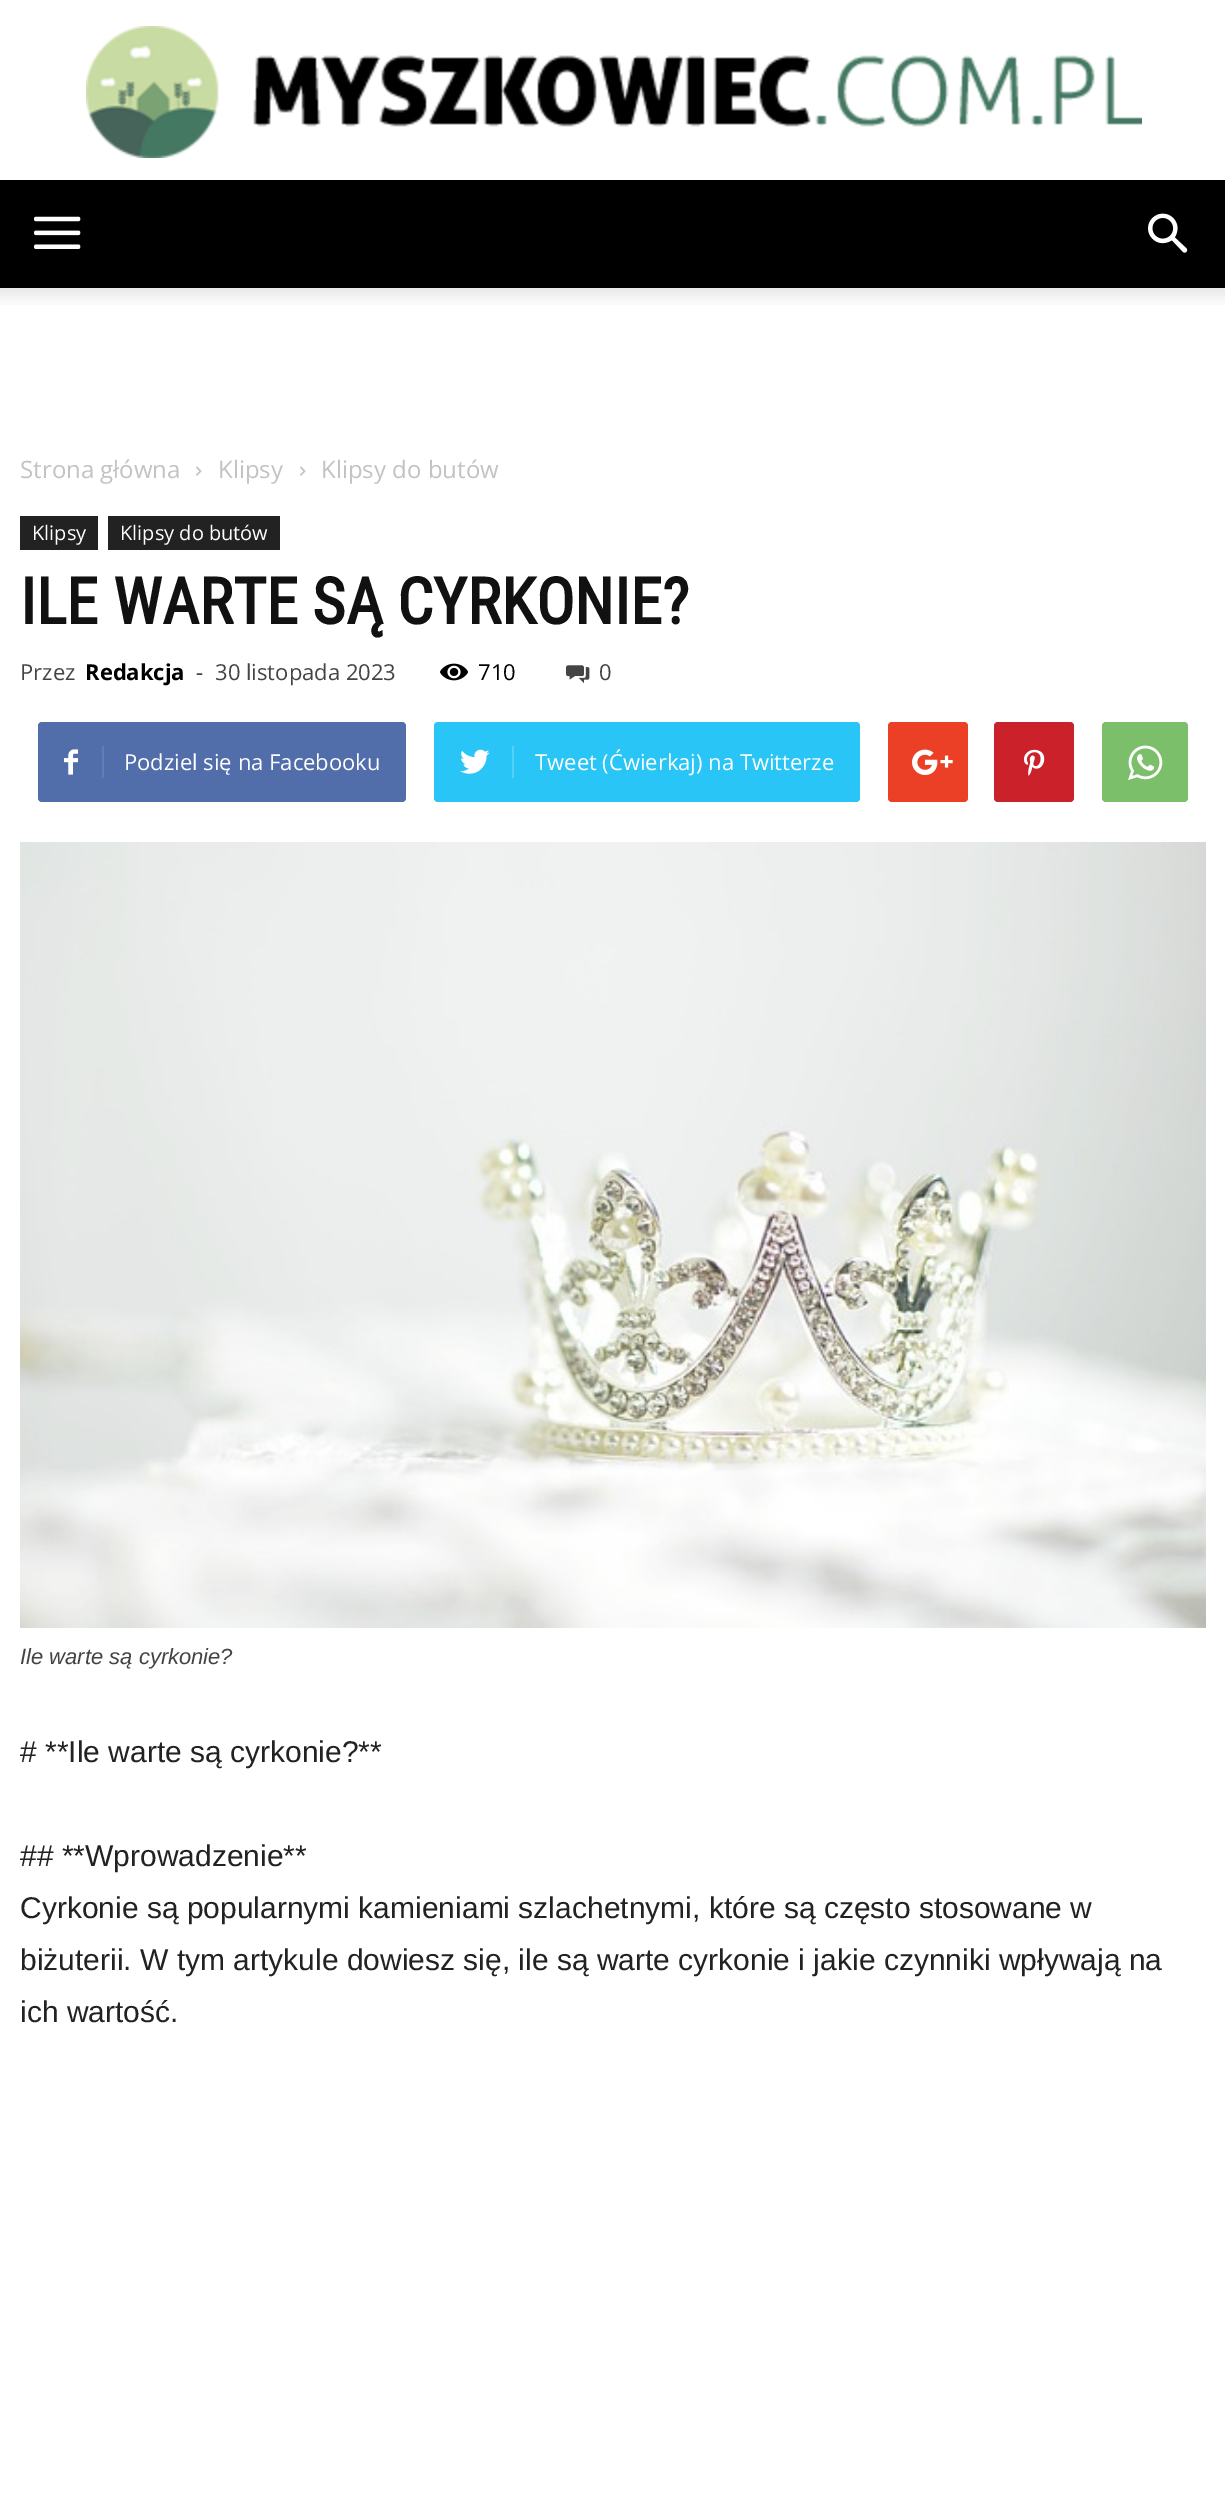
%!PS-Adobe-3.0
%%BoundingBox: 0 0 1225 2511
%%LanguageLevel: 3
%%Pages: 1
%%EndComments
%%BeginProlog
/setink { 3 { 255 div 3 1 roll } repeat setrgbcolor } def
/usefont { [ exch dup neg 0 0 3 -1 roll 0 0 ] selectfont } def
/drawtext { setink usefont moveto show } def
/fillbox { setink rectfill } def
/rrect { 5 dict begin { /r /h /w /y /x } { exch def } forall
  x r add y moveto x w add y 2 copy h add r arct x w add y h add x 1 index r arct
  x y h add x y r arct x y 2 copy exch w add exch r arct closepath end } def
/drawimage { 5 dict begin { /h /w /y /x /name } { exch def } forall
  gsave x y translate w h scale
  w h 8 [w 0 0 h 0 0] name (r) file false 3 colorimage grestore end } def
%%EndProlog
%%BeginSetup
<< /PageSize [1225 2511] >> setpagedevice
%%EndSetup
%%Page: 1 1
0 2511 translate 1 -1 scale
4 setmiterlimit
0 0 1225 2511 255 255 255 fillbox
(assets/img1.rgb) 86 26 1056 132 drawimage
0 180 1225 108 0 0 0 fillbox
(assets/img2.rgb) 34 216 47 33 drawimage
(assets/img3.rgb) 1148 213 40 40 drawimage
(assets/img4.rgb) 0 288 1225 17 drawimage
(Strona główna) 20 478 /OpenSans-Regular 24 195 195 195 drawtext
(assets/img5.rgb) 196 466 6 10 drawimage
(Klipsy) 218 478 /OpenSans-Regular 24 195 195 195 drawtext
(assets/img5.rgb) 300 466 6 10 drawimage
(Klipsy do butów) 321 478 /OpenSans-Regular 24 195 195 195 drawtext
20 516 78 34 34 34 34 fillbox
(Klipsy) 32 540 /OpenSans-Regular 20 255 255 255 drawtext
108 516 172 34 34 34 34 fillbox
(Klipsy do butów) 120 540 /OpenSans-Regular 20 255 255 255 drawtext
(ILE WARTE SĄ CYRKONIE?) 20 624 /RobotoCondensed-Bold 64 17 17 17 drawtext
(Przez) 20 680 /OpenSans-Regular 22 68 68 68 drawtext
(Redakcja) 85 680 /OpenSans-Bold 22 0 0 0 drawtext
(-) 196 680 /OpenSans-Regular 22 68 68 68 drawtext
(30 listopada 2023) 215 680 /OpenSans-Regular 22 68 68 68 drawtext
(assets/img6.rgb) 440 663 28 18 drawimage
(710) 478 680 /OpenSans-Regular 22 0 0 0 drawtext
(assets/img7.rgb) 566 665 24 19 drawimage
(0) 599 680 /OpenSans-Regular 22 68 68 68 drawtext
81 110 171 setink
38 722 368 80 4 rrect fill
(assets/img8.rgb) 64 749 14 26 drawimage
102 746 2 32 98 125 179 fillbox
(Podziel się na Facebooku) 124 770 /OpenSans-Regular 22 255 255 255 drawtext
41 197 246 setink
434 722 426 80 4 rrect fill
(assets/img9.rgb) 460 749 30 25 drawimage
512 746 2 32 84 209 248 fillbox
(Tweet \(Ćwierkaj\) na Twitterze) 535 770 /OpenSans-Regular 22 255 255 255 drawtext
235 64 38 setink
888 722 80 80 4 rrect fill
(assets/img10.rgb) 912 749 41 26 drawimage
202 33 42 setink
994 722 80 80 4 rrect fill
(assets/img11.rgb) 1024 749 21 27 drawimage
123 191 106 setink
1102 722 86 80 4 rrect fill
(assets/img12.rgb) 1128 745 35 35 drawimage
(assets/img13.rgb) 20 842 1186 786 drawimage
(Ile warte są cyrkonie?) 20 1664 /LiberationSans-Italic 22 68 68 68 drawtext
(# **Ile warte są cyrkonie?**) 20 1762 /LiberationSans-Regular 30 34 34 34 drawtext
(## **Wprowadzenie**) 20 1866 /LiberationSans-Regular 30 34 34 34 drawtext
(Cyrkonie są popularnymi kamieniami szlachetnymi, które są często stosowane w) 20 1918 /LiberationSans-Regular 30 34 34 34 drawtext
(biżuterii. W tym artykule dowiesz się, ile są warte cyrkonie i jakie czynniki wpływają na) 20 1970 /LiberationSans-Regular 30 34 34 34 drawtext
(ich wartość.) 20 2022 /LiberationSans-Regular 30 34 34 34 drawtext
showpage
%%EOF
